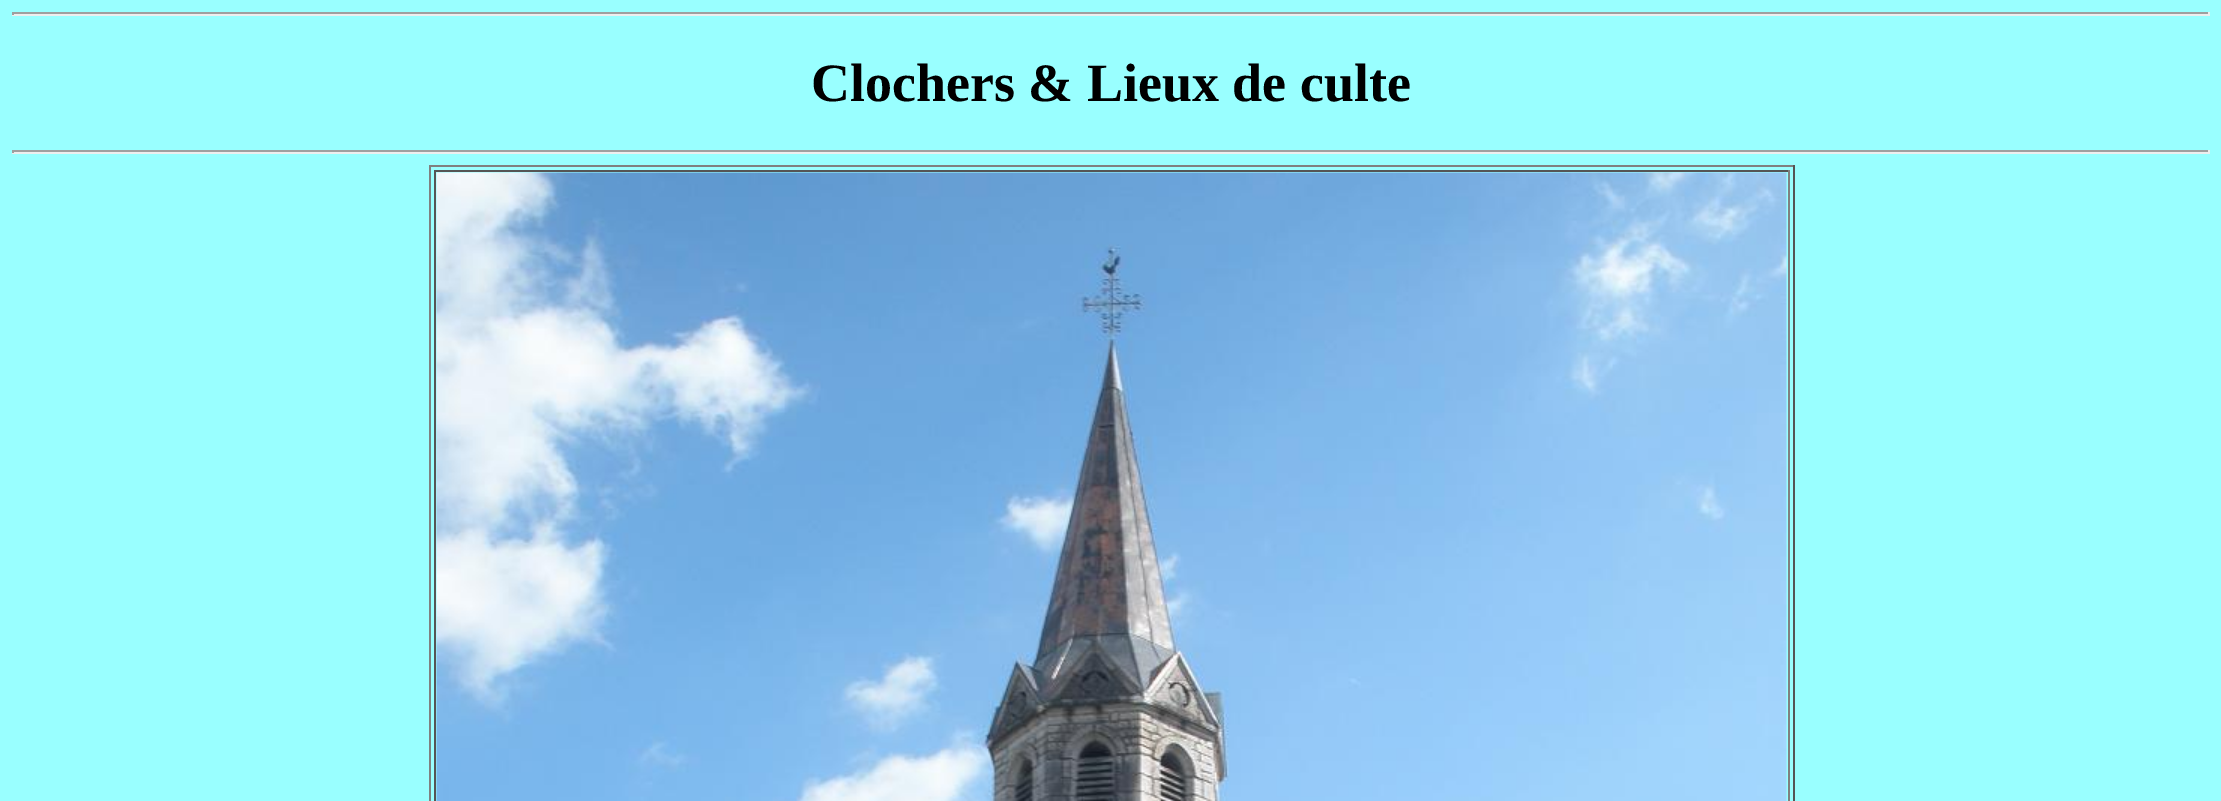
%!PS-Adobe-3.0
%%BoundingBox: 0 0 2221 801
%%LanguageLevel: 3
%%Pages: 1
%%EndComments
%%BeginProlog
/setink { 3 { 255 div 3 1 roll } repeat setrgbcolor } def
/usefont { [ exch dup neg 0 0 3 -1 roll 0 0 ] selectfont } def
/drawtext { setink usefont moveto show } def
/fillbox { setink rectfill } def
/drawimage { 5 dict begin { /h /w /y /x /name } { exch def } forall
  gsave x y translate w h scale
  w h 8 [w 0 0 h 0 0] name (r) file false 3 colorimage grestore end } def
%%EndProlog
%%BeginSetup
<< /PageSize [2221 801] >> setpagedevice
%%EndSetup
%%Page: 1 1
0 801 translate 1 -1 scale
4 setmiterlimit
0 0 2221 801 153 255 255 fillbox
12 12 2198 2 159 159 159 fillbox
2208 12 2 3 238 238 238 fillbox
12 14 2198 2 238 238 238 fillbox
12 12 2 3 159 159 159 fillbox
(Clochers & Lieux de culte) 811 101 /LiberationSerif-Bold 54 0 0 0 drawtext
12 150 2198 2 159 159 159 fillbox
2208 150 2 3 238 238 238 fillbox
12 152 2198 2 238 238 238 fillbox
12 150 2 3 159 159 159 fillbox
429 165 1365 2 128 128 128 fillbox
1793 165 2 636 85 85 85 fillbox
429 165 2 636 128 128 128 fillbox
434 170 1356 2 85 85 85 fillbox
1788 170 2 631 128 128 128 fillbox
434 170 2 631 85 85 85 fillbox
(assets/img1.rgb) 436 172 1351 629 drawimage
showpage
%%EOF
